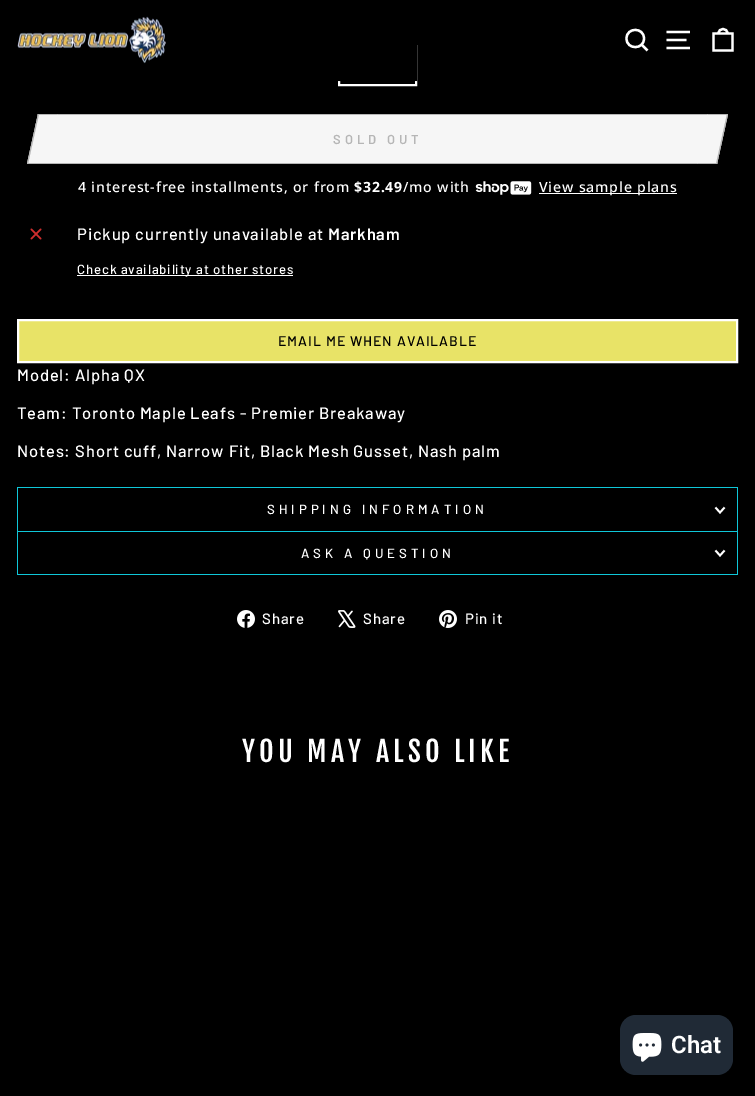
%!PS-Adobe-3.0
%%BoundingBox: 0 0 755 1096
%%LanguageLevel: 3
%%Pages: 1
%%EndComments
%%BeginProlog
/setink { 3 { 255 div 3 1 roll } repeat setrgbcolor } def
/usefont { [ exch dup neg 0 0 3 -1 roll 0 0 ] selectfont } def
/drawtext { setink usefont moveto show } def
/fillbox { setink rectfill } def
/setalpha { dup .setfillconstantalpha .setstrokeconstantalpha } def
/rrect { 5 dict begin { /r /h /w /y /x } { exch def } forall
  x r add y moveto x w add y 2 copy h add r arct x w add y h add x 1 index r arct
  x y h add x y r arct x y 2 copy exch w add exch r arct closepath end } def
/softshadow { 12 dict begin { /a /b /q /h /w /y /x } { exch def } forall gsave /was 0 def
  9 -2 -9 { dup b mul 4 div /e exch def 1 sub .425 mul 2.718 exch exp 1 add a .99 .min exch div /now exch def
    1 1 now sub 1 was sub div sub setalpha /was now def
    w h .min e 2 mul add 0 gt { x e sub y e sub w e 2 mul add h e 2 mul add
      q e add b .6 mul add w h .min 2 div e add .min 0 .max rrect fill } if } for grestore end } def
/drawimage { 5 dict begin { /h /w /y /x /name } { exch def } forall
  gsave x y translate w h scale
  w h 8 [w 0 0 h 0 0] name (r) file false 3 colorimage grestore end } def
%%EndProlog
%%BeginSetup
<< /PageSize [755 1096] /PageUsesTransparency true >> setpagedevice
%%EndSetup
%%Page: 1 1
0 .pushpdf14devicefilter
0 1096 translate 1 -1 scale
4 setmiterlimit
0 0 755 1096 0 0 0 fillbox
255 255 255 setink
2 setlinewidth
339 46 77 39 rectstroke
0 0 0 setink
0 0 755 81 0 0.5 0.2 softshadow
338 45 79 36 0 0 0 fillbox
(assets/img1.rgb) 17 16 149 48 drawimage
255 255 255 setink
2.3 setlinewidth
644 38.5 moveto 644 50 626.5 50 626.5 38.5 curveto 626.5 27 644 27 644 38.5 curveto closepath 647.5 50.5 moveto 641.5 44.5 lineto stroke
666.5 32 moveto 690 32 lineto 666.5 40 moveto 686.5 40 lineto 666.5 48 moveto 690 48 lineto stroke
713.5 33.5 moveto 732.5 33.5 lineto 732.5 50.5 lineto 713.5 50.5 lineto closepath 718.5 33.5 moveto 718.5 27.5 727.5 27.5 727.5 33.5 curveto stroke
47 115 661 48 246 246 246 fillbox
57 114 659 1 182 182 182 fillbox
48 163 650 1 182 182 182 fillbox
246 246 246 setink
38 114 moveto 58 114 lineto 47 164 lineto 27 164 lineto closepath fill
182 182 182 setink
38 114 moveto 58 114 lineto 57.5 115 lineto 37.5 115 lineto closepath fill
28 163 20 1 182 182 182 fillbox
38 114 moveto 39 114 lineto 28 164 lineto 27 164 lineto closepath fill
/Barlow-SemiBold 13 usefont
333 144 moveto 4 0 (SOLD OUT) ashow
246 246 246 setink
708 114 moveto 728 114 lineto 717 164 lineto 697 164 lineto closepath fill
708 114 20 1 182 182 182 fillbox
727 114 moveto 728 114 lineto 717 164 lineto 716 164 lineto closepath fill
697.5 163 moveto 717.5 163 lineto 717 164 lineto 697 164 lineto closepath fill
/NotoSans-Medium 14.1 usefont
255 255 255 setink
78 192 moveto 0.83 0 (4 interest-free installments, or from) ashow
/NotoSans-Bold 14.1 usefont
354 192 moveto 0.83 0 ($32.49) ashow
/NotoSans-Medium 14.1 usefont
403 192 moveto 0.83 0 (/mo with) ashow
(assets/img2.rgb) 475 181 57 14 drawimage
539 193 138 1 255 255 255 fillbox
539 192 moveto 0.83 0 (View sample plans) ashow
(assets/img3.rgb) 30 228 12 12 drawimage
/Barlow-Medium 16.55 usefont
77 240 moveto 0.83 0 (Pickup currently unavailable at) ashow
/Barlow-SemiBold 16.55 usefont
328 240 moveto 0.83 0 (Markham) ashow
77 275 216 1 255 255 255 fillbox
/Barlow-Medium 13.25 usefont
77 274 moveto 0.83 0 (Check availability at other stores) ashow
232 227 103 setink
18 320 moveto 737 320 lineto 737 362 lineto 18 362 lineto closepath gsave fill grestore
255 255 255 setink
2 setlinewidth
stroke
/Barlow-Medium 14 usefont
0 0 0 setink
278 346 moveto 1 0 (EMAIL ME WHEN AVAILABLE) ashow
/Barlow-Medium 16.55 usefont
255 255 255 setink
17 381 moveto 0.83 0 (Model: Alpha QX) ashow
17 419 moveto 0.83 0 (Team: Toronto Maple Leafs - Premier Breakaway) ashow
17 457 moveto 0.83 0 (Notes: Short cuff, Narrow Fit, Black Mesh Gusset, Nash palm) ashow
17 531 721 1 15 199 217 fillbox
17 487 721 1 15 199 217 fillbox
737 487 1 44 15 199 217 fillbox
17 487 1 44 15 199 217 fillbox
/Barlow-Medium 13.25 usefont
255 255 255 setink
267 514 moveto 4 0 (SHIPPING INFORMATION) ashow
1.8 setlinewidth
715.5 507.5 moveto 720 512.5 lineto 724.5 507.5 lineto stroke
17 574 721 1 15 199 217 fillbox
737 532 1 42 15 199 217 fillbox
17 532 1 42 15 199 217 fillbox
255 255 255 setink
301 558 moveto 4 0 (ASK A QUESTION) ashow
715.5 550.5 moveto 720 555.5 lineto 724.5 550.5 lineto stroke
(assets/img4.rgb) 237 610 18 18 drawimage
/Barlow-Medium 15 usefont
262 624 moveto 0.83 0 (Share) ashow
(assets/img5.rgb) 338 610 18 18 drawimage
363 624 moveto 0.83 0 (Share) ashow
(assets/img6.rgb) 439 610 18 18 drawimage
465 624 moveto 0.83 0 (Pin it) ashow
/FjallaOne-Regular 28 usefont
242 762 moveto 4.2 0 (YOU MAY ALSO LIKE) ashow
32 42 54 setink
620 1015 113 60 16 rrect fill
(assets/img7.rgb) 632 1033 30 29 drawimage
(Chat) 671 1053 /Roboto-SemiBold 24 255 255 255 drawtext
.poppdf14devicefilter showpage
%%EOF
